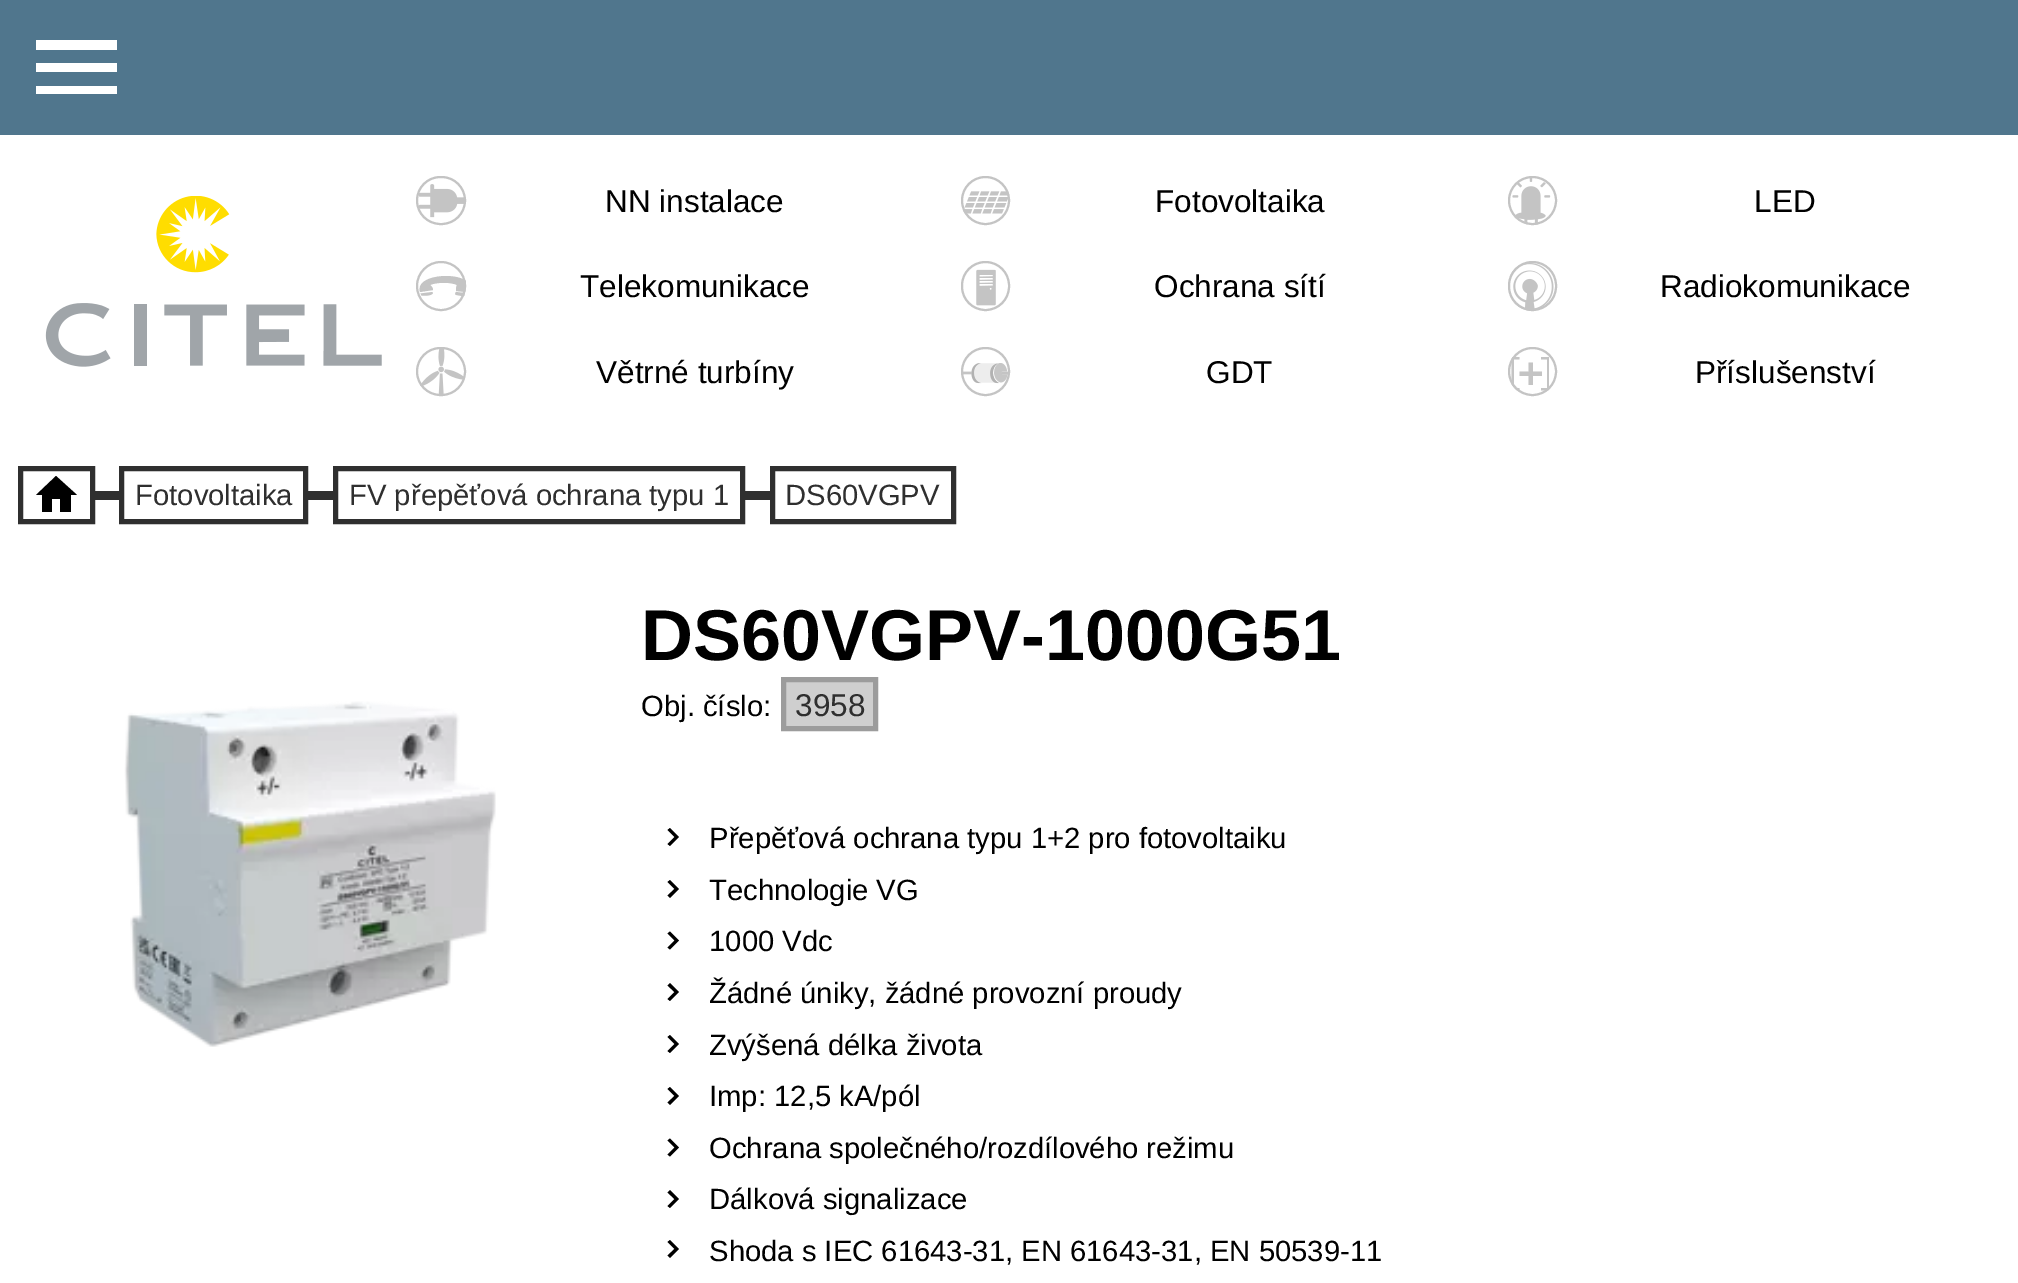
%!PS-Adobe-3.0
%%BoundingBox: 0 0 2018 1283
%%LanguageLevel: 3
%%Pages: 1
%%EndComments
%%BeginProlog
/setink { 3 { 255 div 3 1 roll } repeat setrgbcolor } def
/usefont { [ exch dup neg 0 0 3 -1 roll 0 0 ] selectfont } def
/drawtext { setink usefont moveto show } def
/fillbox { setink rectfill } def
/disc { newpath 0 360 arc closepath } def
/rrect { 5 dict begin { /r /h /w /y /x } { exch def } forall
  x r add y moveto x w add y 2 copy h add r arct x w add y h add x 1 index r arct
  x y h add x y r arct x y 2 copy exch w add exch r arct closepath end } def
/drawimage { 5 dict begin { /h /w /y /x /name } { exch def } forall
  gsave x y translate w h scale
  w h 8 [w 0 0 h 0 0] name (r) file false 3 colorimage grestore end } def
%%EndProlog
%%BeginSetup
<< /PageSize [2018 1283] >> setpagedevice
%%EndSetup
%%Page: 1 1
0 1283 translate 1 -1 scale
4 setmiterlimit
0 0 2018 1283 255 255 255 fillbox
0 0 2018 135 80 118 141 fillbox
255 255 255 setink
36 94 moveto 117 94 lineto 117 86 lineto 36 86 lineto closepath 36 72 moveto 117 72 lineto 117 63 lineto 36 63 lineto closepath 36 40 moveto 36 50 lineto 117 50 lineto 117 40 lineto closepath fill
(assets/img1.rgb) 45 196 337 171 drawimage
(assets/img2.rgb) 418 184 48 34 drawimage
196 196 196 setink
2 setlinewidth
417 177 48 47 23.5 rrect stroke
(NN instalace) 605 212 /LiberationSans-Regular 31.5 0 0 0 drawtext
(assets/img3.rgb) 963 191 47 23 drawimage
196 196 196 setink
985.5 200.5 23.5 disc stroke
(Fotovoltaika) 1155 212 /LiberationSans-Regular 31.5 0 0 0 drawtext
(assets/img4.rgb) 1512 176 39 49 drawimage
196 196 196 setink
1532.5 200.5 23.5 disc stroke
(LED) 1754 212 /LiberationSans-Regular 31.5 0 0 0 drawtext
196 196 196 setink
466 281 moveto 466 285 466 288 465 292 curveto 456 291 lineto 456 291 456 286 457 285 curveto 451 282 437 282 430 285 curveto 430 285 433 287 433 290 curveto 420 292 lineto 415 275 455 272 466 281 curveto closepath 420.5 293.5 moveto 421.5 295.5 lineto 422 296 435 296 432.5 292 curveto closepath fill
456.5 295 moveto 455.5 295 454.5 294 456 292 curveto 465 293 lineto 464 296 lineto 462 296 lineto closepath fill
441 286 24 disc stroke
(Telekomunikace) 580 297 /LiberationSans-Regular 31.5 0 0 0 drawtext
(assets/img5.rgb) 976 269 20 37 drawimage
196 196 196 setink
962 262 47 48 23.5 rrect stroke
(Ochrana sítí) 1154 297 /LiberationSans-Regular 31.5 0 0 0 drawtext
(assets/img6.rgb) 1508 263 46 48 drawimage
196 196 196 setink
1509 262 47 48 23.5 rrect stroke
(Radiokomunikace) 1660 297 /LiberationSans-Regular 31.5 0 0 0 drawtext
(assets/img7.rgb) 420 347 45 49 drawimage
196 196 196 setink
417 348 48 47 23.5 rrect stroke
(Větrné turbíny) 596 383 /LiberationSans-Regular 31.5 0 0 0 drawtext
(assets/img8.rgb) 961 363 49 21 drawimage
196 196 196 setink
985.5 371.5 23.5 disc stroke
(GDT) 1206 383 /LiberationSans-Regular 31.5 0 0 0 drawtext
196 196 196 setink
1514 359.5 moveto 1514 387.5 lineto 1511.5 384 lineto 1511.5 359 lineto 1512.5 357 lineto 1519.5 357 lineto 1519.5 359.5 lineto closepath 1517 390.5 moveto 1519.5 390.5 lineto 1519.5 388 lineto 1514.5 388 lineto closepath eofill
1541 357 moveto 1549 357 lineto 1549 389.5 lineto 1548 390.5 lineto 1541 390.5 lineto 1541 388 lineto 1547 388 lineto 1547 359.5 lineto 1541 359.5 lineto closepath fill
1542 376 moveto 1542 371.5 lineto 1533 371.5 lineto 1533 362.5 lineto 1528.5 362.5 lineto 1528.5 371.5 lineto 1519.5 371.5 lineto 1519.5 376 lineto 1528.5 376 lineto 1528.5 385 lineto 1533 385 lineto 1533 376 lineto closepath fill
1532.5 371.5 23.5 disc stroke
(Příslušenství) 1695 383 /LiberationSans-Regular 31.5 0 0 0 drawtext
52 512 moveto 52 499 lineto 60 499 lineto 60 512 lineto 71 512 lineto 71 495 lineto 77 495 lineto 56 476 lineto 36 495 lineto 42 495 lineto 42 512 lineto closepath fill
47 47 47 setink
5 setlinewidth
20.5 468.5 72 53 rectstroke
121.5 468.5 184 53 rectstroke
95 491 24 9 47 47 47 fillbox
(Fotovoltaika) 135 505 /LiberationSans-Regular 29.25 47 47 47 drawtext
335.5 468.5 407 53 rectstroke
308 491 25 9 47 47 47 fillbox
(FV přepěťová ochrana typu 1) 349 505 /LiberationSans-Regular 29.25 47 47 47 drawtext
772.5 468.5 181 53 rectstroke
745 491 25 9 47 47 47 fillbox
(DS60VGPV) 785 505 /LiberationSans-Regular 29.25 47 47 47 drawtext
(assets/img9.rgb) 124 701 372 346 drawimage
(DS60VGPV-1000G51) 641 660 /LiberationSans-Bold 72 0 0 0 drawtext
(Obj. číslo:) 641 716 /LiberationSans-Regular 29.25 0 0 0 drawtext
207 207 207 setink
783.5 679.5 moveto 875.5 679.5 lineto 875.5 728.5 lineto 783.5 728.5 lineto closepath gsave fill grestore
156 156 156 setink
stroke
(3958) 795 716 /LiberationSans-Regular 31.5 47 47 47 drawtext
0 0 0 setink
667.5 844 moveto 674.5 837 lineto 667.5 830 lineto 670 828 lineto 679 837 lineto 670 846 lineto closepath fill
(Přepěťová ochrana typu 1+2 pro fotovoltaiku) 709 848 /LiberationSans-Regular 29.25 0 0 0 drawtext
667.5 895.5 moveto 674.5 889 lineto 667.5 882 lineto 670 880 lineto 679 889 lineto 670 898 lineto closepath fill
(Technologie VG) 709 900 /LiberationSans-Regular 29.25 0 0 0 drawtext
667.5 947.5 moveto 674.5 940.5 lineto 667.5 933.5 lineto 670 931.5 lineto 679 940.5 lineto 670 949.5 lineto closepath fill
(1000 Vdc) 709 951 /LiberationSans-Regular 29.25 0 0 0 drawtext
667.5 999 moveto 674.5 992 lineto 667.5 985.5 lineto 670 983 lineto 679 992 lineto 670 1001 lineto closepath fill
(Žádné úniky, žádné provozní proudy) 709 1003 /LiberationSans-Regular 29.25 0 0 0 drawtext
667.5 1051 moveto 674.5 1044 lineto 667.5 1037 lineto 670 1035 lineto 679 1044 lineto 670 1053 lineto closepath fill
(Zvýšená délka života) 709 1055 /LiberationSans-Regular 29.25 0 0 0 drawtext
667.5 1102.5 moveto 674.5 1096 lineto 667.5 1089 lineto 670 1087 lineto 679 1096 lineto 670 1105 lineto closepath fill
(Imp: 12,5 kA/pól) 709 1106 /LiberationSans-Regular 29.25 0 0 0 drawtext
667.5 1154.5 moveto 674.5 1147.5 lineto 667.5 1140.5 lineto 670 1138.5 lineto 679 1147.5 lineto 670 1156.5 lineto closepath fill
(Ochrana společného/rozdílového režimu) 709 1158 /LiberationSans-Regular 29.25 0 0 0 drawtext
667.5 1206 moveto 674.5 1199 lineto 667.5 1192.5 lineto 670 1190 lineto 679 1199 lineto 670 1208 lineto closepath fill
(Dálková signalizace) 709 1209 /LiberationSans-Regular 29.25 0 0 0 drawtext
667.5 1255.5 moveto 674.5 1249 lineto 667.5 1242 lineto 670 1240 lineto 679 1249 lineto 670 1258 lineto closepath fill
(Shoda s IEC 61643-31, EN 61643-31, EN 50539-11) 709 1261 /LiberationSans-Regular 29.25 0 0 0 drawtext
showpage
%%EOF
